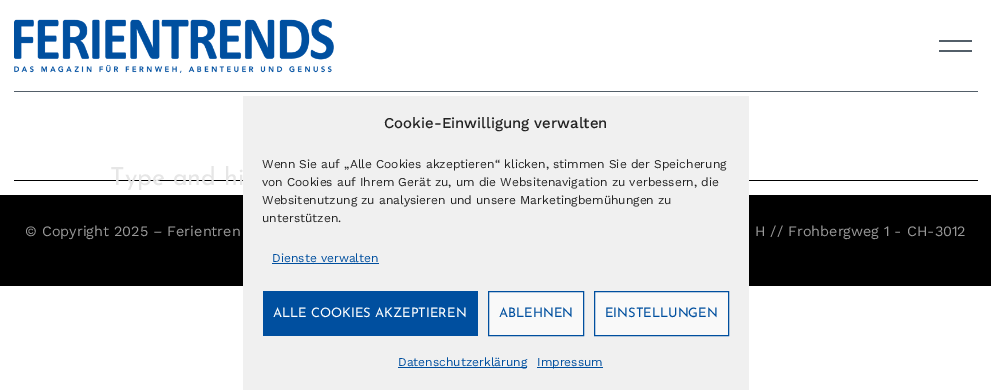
%!PS-Adobe-3.0
%%BoundingBox: 0 0 991 390
%%LanguageLevel: 3
%%Pages: 1
%%EndComments
%%BeginProlog
/setink { 3 { 255 div 3 1 roll } repeat setrgbcolor } def
/usefont { [ exch dup neg 0 0 3 -1 roll 0 0 ] selectfont } def
/drawtext { setink usefont moveto show } def
/fillbox { setink rectfill } def
/drawimage { 5 dict begin { /h /w /y /x /name } { exch def } forall
  gsave x y translate w h scale
  w h 8 [w 0 0 h 0 0] name (r) file false 3 colorimage grestore end } def
%%EndProlog
%%BeginSetup
<< /PageSize [991 390] >> setpagedevice
%%EndSetup
%%Page: 1 1
0 390 translate 1 -1 scale
4 setmiterlimit
0 0 991 390 255 255 255 fillbox
14 180 964 1 0 0 0 fillbox
gsave
110 166 771 25 rectclip
(Type and hi) 110 185 /JosefinSans-Regular 25 230 230 230 drawtext
grestore
0 195 991 91 0 0 0 fillbox
243 96 506 294 240 240 240 fillbox
(Cookie-Einwilligung verwalten) 384 128 /WorkSans-Medium 15 34 34 34 drawtext
(Wenn Sie auf „Alle Cookies akzeptieren“ klicken, stimmen Sie der Speicherung) 262 168 /WorkSans-Regular 12 34 34 34 drawtext
(von Cookies auf Ihrem Gerät zu, um die Websitenavigation zu verbessern, die) 262 186 /WorkSans-Regular 12 34 34 34 drawtext
(Websitenutzung zu analysieren und unsere Marketingbemühungen zu) 262 204 /WorkSans-Regular 12 34 34 34 drawtext
(unterstützen.) 262 222 /WorkSans-Regular 12 34 34 34 drawtext
(Dienste verwalten) 272 262 /WorkSans-Regular 12 0 79 159 drawtext
272 263 107 1 0 79 159 fillbox
263 291 215 45 0 79 159 fillbox
(ALLE COOKIES AKZEPTIEREN) 273 317 /JosefinSans-Regular 13 255 255 255 drawtext
249 249 249 setink
488.5 291.5 moveto 583.5 291.5 lineto 583.5 335.5 lineto 488.5 335.5 lineto closepath gsave fill grestore
0 79 159 setink
stroke
(ABLEHNEN) 499 317 /JosefinSans-Regular 13 0 79 159 drawtext
249 249 249 setink
594.5 291.5 moveto 728.5 291.5 lineto 728.5 335.5 lineto 594.5 335.5 lineto closepath gsave fill grestore
0 79 159 setink
stroke
(EINSTELLUNGEN) 605 317 /JosefinSans-Regular 13 0 79 159 drawtext
398 367 129 1 0 79 159 fillbox
(Datenschutzerklärung) 398 366 /WorkSans-Regular 12 0 79 159 drawtext
537 367 66 1 0 79 159 fillbox
(Impressum) 537 366 /WorkSans-Regular 12 0 79 159 drawtext
(assets/img1.rgb) 14 19 320 54 drawimage
939 40 33 2 83 95 105 fillbox
939 50 33 2 83 95 105 fillbox
14 91 964 1 83 95 105 fillbox
(© Copyright 2025 – Ferientren) 25 236 /WorkSans-Regular 14.4 153 153 153 drawtext
(H // Frohbergweg 1 - CH-3012) 755 236 /WorkSans-Regular 14.4 153 153 153 drawtext
showpage
%%EOF
